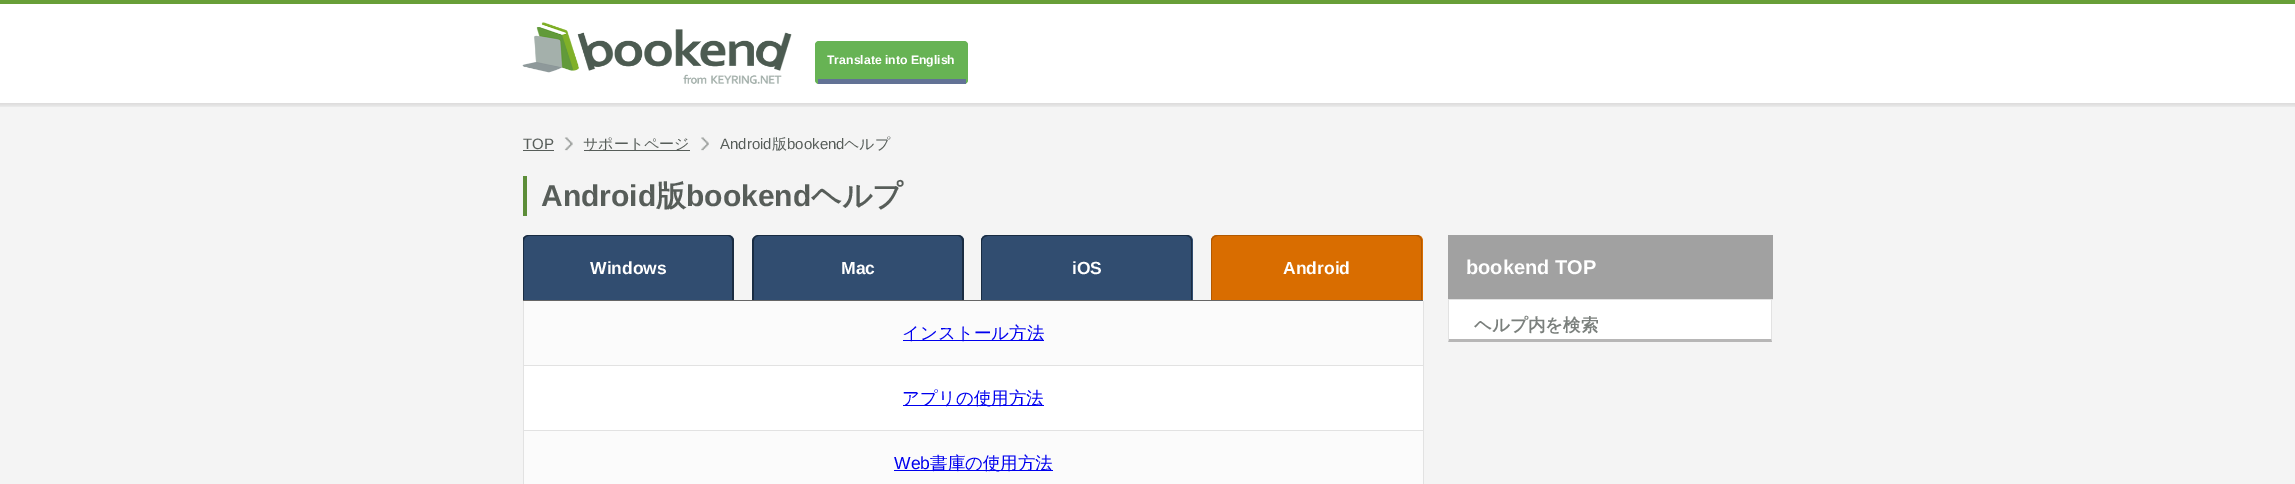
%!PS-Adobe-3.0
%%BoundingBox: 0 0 2295 484
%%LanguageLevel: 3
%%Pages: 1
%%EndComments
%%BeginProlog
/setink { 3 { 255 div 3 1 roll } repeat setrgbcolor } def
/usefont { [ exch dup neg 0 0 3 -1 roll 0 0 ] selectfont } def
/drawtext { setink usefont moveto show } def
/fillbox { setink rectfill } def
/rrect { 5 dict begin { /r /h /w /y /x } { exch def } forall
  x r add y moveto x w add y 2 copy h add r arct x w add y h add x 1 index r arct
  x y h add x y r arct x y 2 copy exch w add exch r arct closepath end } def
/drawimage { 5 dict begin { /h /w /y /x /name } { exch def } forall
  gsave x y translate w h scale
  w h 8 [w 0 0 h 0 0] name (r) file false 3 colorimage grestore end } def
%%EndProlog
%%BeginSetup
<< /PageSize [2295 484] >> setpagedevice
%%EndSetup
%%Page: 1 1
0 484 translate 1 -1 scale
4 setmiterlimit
0 0 2295 484 244 244 244 fillbox
0 4 2295 99 255 255 255 fillbox
0 0 2295 4 104 159 56 fillbox
(assets/img1.rgb) 522 22 270 62 drawimage
103 179 84 setink
815 41 153 43 4 rrect fill
818 79 148 5 98 114 149 fillbox
(Translate into English) 827 64 /LiberationSans-Bold 12.25 255 255 255 drawtext
(assets/img2.rgb) 0 103 2295 4 drawimage
(TOP) 523 149 /LiberationSans-Regular 15 87 93 89 drawtext
523 150 31 1 87 93 89 fillbox
(assets/img3.rgb) 564 137 9 14 drawimage
584 150 106 1 87 93 89 fillbox
(サポートページ) 583 149 /WenQuanYiZenHei-Medium 15 87 93 89 drawtext
(assets/img4.rgb) 701 137 8 14 drawimage
(Android) 720 149 /LiberationSans-Regular 15 87 93 89 drawtext
(版) 772 149 /WenQuanYiZenHei-Medium 15 87 93 89 drawtext
(bookend) 787 149 /LiberationSans-Regular 15 87 93 89 drawtext
(ヘルプ) 844 149 /WenQuanYiZenHei-Medium 15 87 93 89 drawtext
523 176 4 40 92 141 56 fillbox
(Android) 541 206 /LiberationSans-Bold 30 87 93 89 drawtext
(版) 656 206 /WenQuanYiZenHei-Bold 30 87 93 89 drawtext
(bookend) 686 206 /LiberationSans-Bold 30 87 93 89 drawtext
(ヘルプ) 811 206 /WenQuanYiZenHei-Bold 30 87 93 89 drawtext
523 300 900 1 102 102 102 fillbox
49 77 112 setink
529 235 moveto 728 235 lineto 731.5 235 734 237.5 734 241 curveto 734 300 lineto 523 300 lineto 523 241 lineto 523 237.5 525.5 235 529 235 curveto closepath fill
gsave
523 235 900 65 rectclip
25 44 66 setink
529 235 moveto 728 235 lineto 731 235 734 238 734 241 curveto 734 300 lineto 522 300 lineto 522 241 lineto 522 238 525 235 529 235 curveto closepath 529 236 moveto 728 236 lineto 730 236 732 238 732 241 curveto 732 300 lineto 524 300 lineto 524 241 lineto 524 238 526 236 529 236 curveto closepath eofill
grestore
(Windows) 590 274 /LiberationSans-Bold 17.5 255 255 255 drawtext
49 77 112 setink
759 235 moveto 958 235 lineto 961.5 235 964 237.5 964 241 curveto 964 300 lineto 753 300 lineto 753 241 lineto 753 237.5 755.5 235 759 235 curveto closepath fill
25 44 66 setink
759 235 moveto 958 235 lineto 961 235 964 238 964 241 curveto 964 300 lineto 752 300 lineto 752 241 lineto 752 238 755 235 759 235 curveto closepath 759 236 moveto 958 236 lineto 960 236 962 238 962 241 curveto 962 300 lineto 754 300 lineto 754 241 lineto 754 238 756 236 759 236 curveto closepath eofill
(Mac) 841 274 /LiberationSans-Bold 17.5 255 255 255 drawtext
49 77 112 setink
987 235 moveto 1187 235 lineto 1190.5 235 1193 237.5 1193 241 curveto 1193 300 lineto 981 300 lineto 981 241 lineto 981 237.5 983.5 235 987 235 curveto closepath fill
25 44 66 setink
988 235 moveto 1186 235 lineto 1190 235 1192 238 1192 241 curveto 1192 300 lineto 981 300 lineto 981 241 lineto 981 238 984 235 988 235 curveto closepath 988 236 moveto 1186 236 lineto 1189 236 1191 238 1191 241 curveto 1191 300 lineto 982 300 lineto 982 241 lineto 982 238 985 236 988 236 curveto closepath eofill
(iOS) 1072 274 /LiberationSans-Bold 17.5 255 255 255 drawtext
217 109 0 setink
1217 235 moveto 1417 235 lineto 1420.5 235 1423 237.5 1423 241 curveto 1423 300 lineto 1211 300 lineto 1211 241 lineto 1211 237.5 1213.5 235 1217 235 curveto closepath fill
178 89 0 setink
1218 235 moveto 1416 235 lineto 1420 235 1422 238 1422 241 curveto 1422 300 lineto 1211 300 lineto 1211 241 lineto 1211 238 1214 235 1218 235 curveto closepath 1218 236 moveto 1416 236 lineto 1419 236 1421 238 1421 241 curveto 1421 300 lineto 1212 300 lineto 1212 241 lineto 1212 238 1215 236 1218 236 curveto closepath eofill
(Android) 1283 274 /LiberationSans-Bold 17.5 255 255 255 drawtext
524 301 899 64 251 251 251 fillbox
523 365 901 1 226 226 226 fillbox
523 301 1 65 226 226 226 fillbox
1423 301 1 64 226 226 226 fillbox
903 340 141 1 0 0 238 fillbox
(インストール方法) 902 339 /WenQuanYiZenHei-Medium 17.5 0 0 238 drawtext
524 366 899 64 255 255 255 fillbox
523 430 901 1 226 226 226 fillbox
523 366 1 118 226 226 226 fillbox
1423 366 1 64 226 226 226 fillbox
903 405 141 1 0 0 238 fillbox
(アプリの使用方法) 902 404 /WenQuanYiZenHei-Medium 17.5 0 0 238 drawtext
524 431 899 53 251 251 251 fillbox
1423 431 1 53 226 226 226 fillbox
(Web) 894 469 /LiberationSans-Regular 17.5 0 0 238 drawtext
894 470 159 1 0 0 238 fillbox
(書庫の使用方法) 930 469 /WenQuanYiZenHei-Medium 17.5 0 0 238 drawtext
1448 235 325 64 161 161 161 fillbox
(bookend TOP) 1466 274 /LiberationSans-Bold 20 255 255 255 drawtext
1449 300 322 39 255 255 255 fillbox
1448 299 325 1 226 226 226 fillbox
1772 299 moveto 1772 342 lineto 1771 339 lineto 1771 300 lineto closepath fill
183 182 182 setink
1772 342 moveto 1448 342 lineto 1449 339 lineto 1771 339 lineto closepath fill
226 226 226 setink
1448 342 moveto 1448 299 lineto 1449 300 lineto 1449 339 lineto closepath fill
(ヘルプ内を検索) 1474 331 /WenQuanYiZenHei-Bold 17.5 122 127 124 drawtext
showpage
%%EOF
